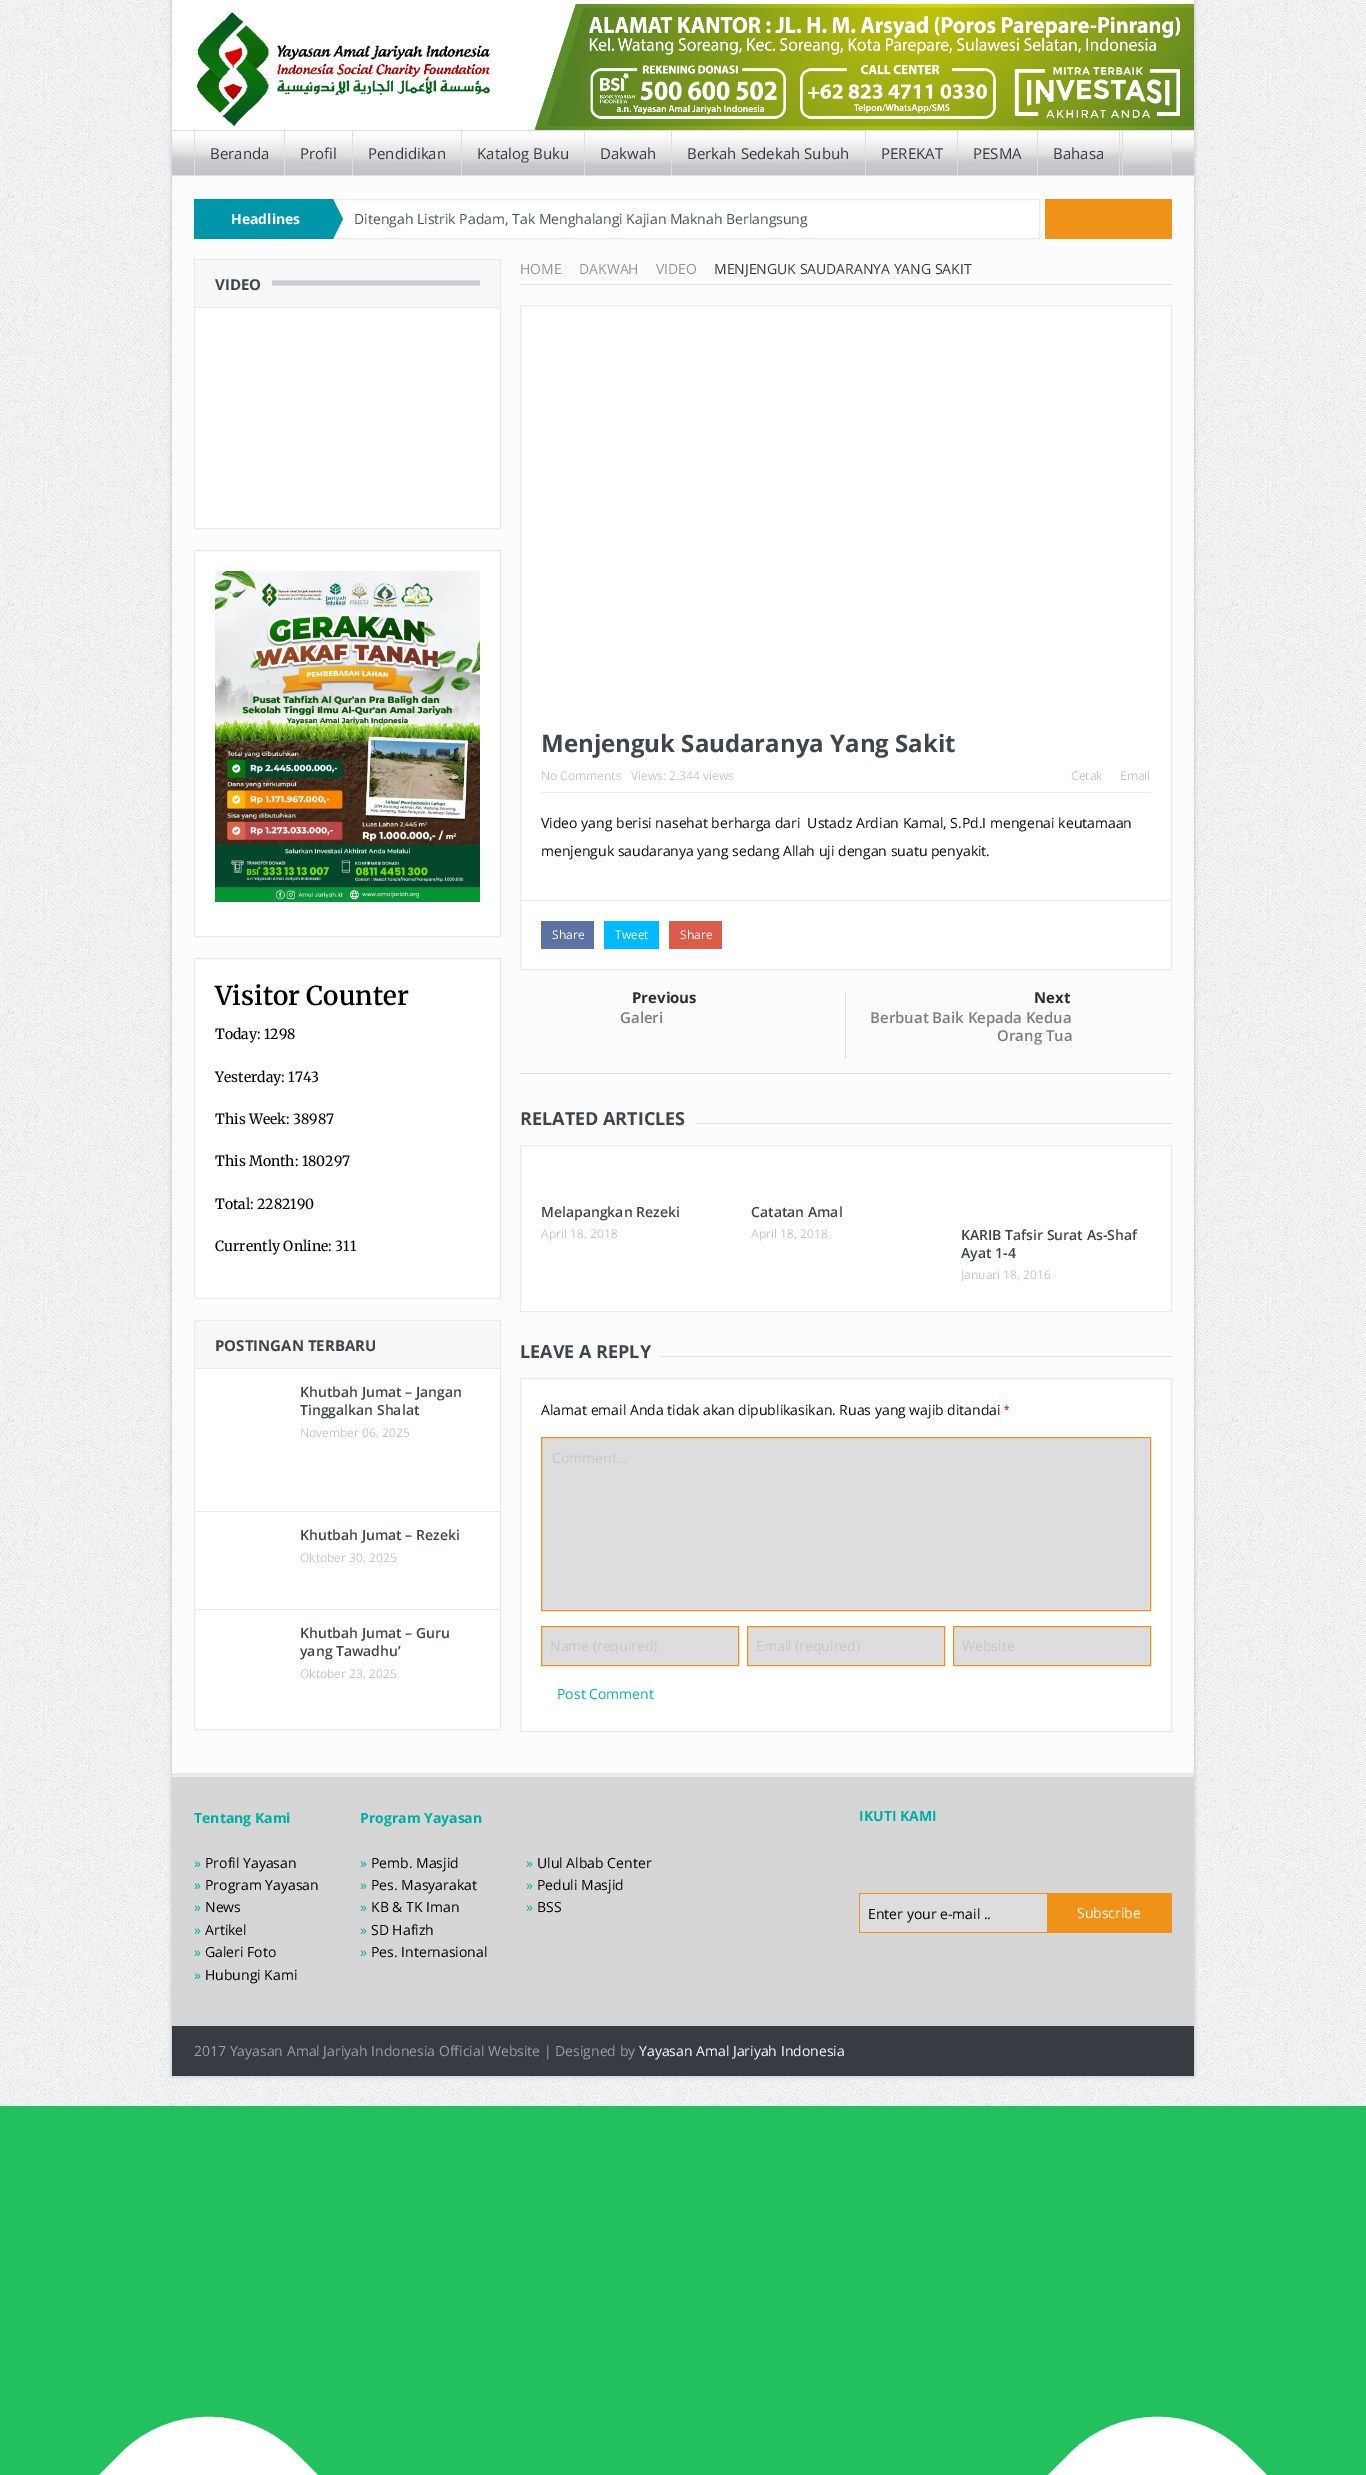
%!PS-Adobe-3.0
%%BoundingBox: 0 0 1366 2475
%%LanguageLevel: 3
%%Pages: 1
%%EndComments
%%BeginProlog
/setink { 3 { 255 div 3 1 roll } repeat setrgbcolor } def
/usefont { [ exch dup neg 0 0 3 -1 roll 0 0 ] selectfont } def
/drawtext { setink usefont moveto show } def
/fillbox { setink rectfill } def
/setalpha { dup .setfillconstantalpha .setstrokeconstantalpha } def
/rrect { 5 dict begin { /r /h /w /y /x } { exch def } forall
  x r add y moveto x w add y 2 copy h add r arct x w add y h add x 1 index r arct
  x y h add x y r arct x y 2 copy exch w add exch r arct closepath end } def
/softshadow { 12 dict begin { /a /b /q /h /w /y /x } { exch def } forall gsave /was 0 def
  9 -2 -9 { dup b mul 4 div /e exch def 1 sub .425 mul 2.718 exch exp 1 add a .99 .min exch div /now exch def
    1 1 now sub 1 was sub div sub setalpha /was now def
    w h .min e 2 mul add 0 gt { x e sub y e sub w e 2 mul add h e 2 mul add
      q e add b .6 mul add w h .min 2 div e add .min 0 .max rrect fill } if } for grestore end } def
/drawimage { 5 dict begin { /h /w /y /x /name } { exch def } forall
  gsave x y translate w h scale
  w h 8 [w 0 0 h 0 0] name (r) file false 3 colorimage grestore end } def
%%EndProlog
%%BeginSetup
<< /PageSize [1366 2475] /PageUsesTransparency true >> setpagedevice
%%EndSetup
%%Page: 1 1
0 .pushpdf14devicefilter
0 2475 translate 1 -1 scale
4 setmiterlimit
0 0 1366 2475 255 255 255 fillbox
(assets/img1.rgb) 0 0 1366 2106 drawimage
0 0 0 setink
172 0 1022 2076 0 2.5 0.2 softshadow
172 176 1022 1597 252 252 252 fillbox
172 0 1022 130 255 255 255 fillbox
(assets/img2.rgb) 534 4 660 126 drawimage
(assets/img3.rgb) 197 12 293 114 drawimage
172 130 1022 1 223 223 223 fillbox
(assets/img4.rgb) 172 131 1022 44 drawimage
172 175 1022 1 223 223 223 fillbox
194 131 1 44 223 223 223 fillbox
(Beranda) 210 159 /OpenSans-Regular 15 55 60 67 drawtext
284 131 1 44 223 223 223 fillbox
(Profil) 300 159 /OpenSans-Regular 15 55 60 67 drawtext
352 131 1 44 223 223 223 fillbox
(Pendidikan) 368 159 /OpenSans-Regular 15 55 60 67 drawtext
461 131 1 44 223 223 223 fillbox
(Katalog Buku) 477 159 /OpenSans-Regular 15 55 60 67 drawtext
584 131 1 44 223 223 223 fillbox
(Dakwah) 600 159 /OpenSans-Regular 15 55 60 67 drawtext
671 131 1 44 223 223 223 fillbox
(Berkah Sedekah Subuh) 687 159 /OpenSans-Regular 15 55 60 67 drawtext
865 131 1 44 223 223 223 fillbox
(PEREKAT) 881 159 /OpenSans-Regular 15 55 60 67 drawtext
957 131 1 44 223 223 223 fillbox
(PESMA) 973 159 /OpenSans-Regular 15 55 60 67 drawtext
1119 131 1 44 223 223 223 fillbox
1037 131 1 44 223 223 223 fillbox
(Bahasa) 1053 159 /OpenSans-Regular 15 55 60 67 drawtext
1123 135 48 2 255 255 255 fillbox
(assets/img5.rgb) 1123 137 48 38 drawimage
1171 131 1 44 223 223 223 fillbox
1122 131 1 44 223 223 223 fillbox
194 199 139 40 0 150 169 fillbox
(Headlines) 231 224 /OpenSans-Bold 14 255 255 255 drawtext
333.5 199.5 moveto 1039.5 199.5 lineto 1039.5 238.5 lineto 333.5 238.5 lineto closepath gsave fill grestore
234 234 234 setink
stroke
0 150 169 setink
333 239 moveto 333 199 lineto 343 219 lineto closepath fill
(Ditengah Listrik Padam, Tak Menghalangi Kajian Maknah Berlangsung) 354 224 /OpenSans-Regular 14 74 82 93 drawtext
1045 199 127 40 240 146 23 fillbox
195 308 305 220 255 255 255 fillbox
234 234 234 setink
194.5 259.5 306 269 rectstroke
195 260 305 47 248 248 248 fillbox
195 307 305 1 234 234 234 fillbox
(assets/img6.rgb) 272 279 208 7 drawimage
(VIDEO) 215 290 /OpenSans-Bold 15 64 69 77 drawtext
255 255 255 setink
194.5 550.5 moveto 500.5 550.5 lineto 500.5 936.5 lineto 194.5 936.5 lineto closepath gsave fill grestore
234 234 234 setink
stroke
(assets/img7.rgb) 215 571 265 331 drawimage
255 255 255 setink
194.5 958.5 moveto 500.5 958.5 lineto 500.5 1298.5 lineto 194.5 1298.5 lineto closepath gsave fill grestore
234 234 234 setink
stroke
(Visitor Counter) 215 1005 /Merriweather-SemiBold 26 0 0 0 drawtext
(Today: 1298) 215 1039 /Merriweather-Regular 14 0 0 0 drawtext
(Yesterday: 1743) 215 1082 /Merriweather-Regular 14 0 0 0 drawtext
(This Week: 38987) 215 1124 /Merriweather-Regular 14 0 0 0 drawtext
(This Month: 180297) 215 1166 /Merriweather-Regular 14 0 0 0 drawtext
(Total: 2282190) 215 1209 /Merriweather-Regular 14 0 0 0 drawtext
(Currently Online: 311) 215 1251 /Merriweather-Regular 14 0 0 0 drawtext
195 1369 305 360 255 255 255 fillbox
234 234 234 setink
194.5 1320.5 306 409 rectstroke
195 1321 305 47 248 248 248 fillbox
195 1368 305 1 234 234 234 fillbox
(POSTINGAN TERBARU) 215 1351 /OpenSans-Bold 15 64 69 77 drawtext
195 1511 305 1 234 234 234 fillbox
(Khutbah Jumat – Jangan) 300 1397 /OpenSans-SemiBold 14 64 69 77 drawtext
(Tinggalkan Shalat) 300 1415 /OpenSans-SemiBold 14 64 69 77 drawtext
(November 06, 2025) 300 1437 /OpenSans-Regular 12 198 198 198 drawtext
195 1609 305 1 234 234 234 fillbox
(Khutbah Jumat – Rezeki) 300 1540 /OpenSans-SemiBold 14 64 69 77 drawtext
(Oktober 30, 2025) 300 1562 /OpenSans-Regular 12 198 198 198 drawtext
(Khutbah Jumat – Guru) 300 1638 /OpenSans-SemiBold 14 64 69 77 drawtext
(yang Tawadhu’) 300 1656 /OpenSans-SemiBold 14 64 69 77 drawtext
(Oktober 23, 2025) 300 1678 /OpenSans-Regular 12 198 198 198 drawtext
520 284 652 1 224 224 224 fillbox
(HOME) 520 274 /OpenSans-Regular 14 149 149 149 drawtext
(DAKWAH) 579 274 /OpenSans-Regular 14 149 149 149 drawtext
(VIDEO) 656 274 /OpenSans-Regular 14 149 149 149 drawtext
(MENJENGUK SAUDARANYA YANG SAKIT) 714 274 /OpenSans-Regular 14 55 60 67 drawtext
255 255 255 setink
520.5 305.5 moveto 1171.5 305.5 lineto 1171.5 969.5 lineto 520.5 969.5 lineto closepath gsave fill grestore
234 234 234 setink
stroke
(Menjenguk Saudaranya Yang Sakit) 541 752 /OpenSans-Bold 24 64 69 77 drawtext
541 792 610 1 234 234 234 fillbox
(No Comments) 541 780 /OpenSans-Regular 12 198 198 198 drawtext
(Views: 2.344 views) 631 780 /OpenSans-Regular 12 198 198 198 drawtext
(Cetak) 1071 780 /OpenSans-Regular 12 198 198 198 drawtext
(Email) 1120 780 /OpenSans-Regular 12 198 198 198 drawtext
(Video yang berisi nasehat berharga dari  Ustadz Ardian Kamal, S.Pd.I mengenai keutamaan) 541 828 /OpenSans-Regular 14 12 12 12 drawtext
(menjenguk saudaranya yang sedang Allah uji dengan suatu penyakit.) 541 856 /OpenSans-Regular 14 12 12 12 drawtext
521 900 650 1 234 234 234 fillbox
541 921 53 28 93 114 164 fillbox
(Share) 552 939 /OpenSans-Regular 12 255 255 255 drawtext
604 921 55 28 0 186 255 fillbox
(Tweet) 615 939 /OpenSans-Regular 12 255 255 255 drawtext
669 921 53 28 219 92 75 fillbox
(Share) 680 939 /OpenSans-Regular 12 255 255 255 drawtext
520 1073 652 1 224 224 224 fillbox
(Previous) 632 1003 /OpenSans-Bold 15 45 45 45 drawtext
(Galeri) 620 1023 /OpenSans-SemiBold 15 126 126 126 drawtext
845 991 1 67 224 224 224 fillbox
(Next) 1034 1003 /OpenSans-Bold 15 45 45 45 drawtext
(Berbuat Baik Kepada Kedua) 870 1023 /OpenSans-SemiBold 15 126 126 126 drawtext
(Orang Tua) 997 1041 /OpenSans-SemiBold 15 126 126 126 drawtext
(RELATED ARTICLES) 520 1125 /OpenSans-Bold 18 64 69 77 drawtext
695 1123 477 1 224 224 224 fillbox
255 255 255 setink
520.5 1145.5 moveto 1171.5 1145.5 lineto 1171.5 1311.5 lineto 520.5 1311.5 lineto closepath gsave fill grestore
234 234 234 setink
stroke
(Melapangkan Rezeki) 541 1217 /OpenSans-SemiBold 14 64 69 77 drawtext
(April 18, 2018) 541 1238 /OpenSans-Regular 12 198 198 198 drawtext
(Catatan Amal) 751 1217 /OpenSans-SemiBold 14 64 69 77 drawtext
(April 18, 2018) 751 1238 /OpenSans-Regular 12 198 198 198 drawtext
(KARIB Tafsir Surat As-Shaf) 961 1240 /OpenSans-SemiBold 14 64 69 77 drawtext
(Ayat 1-4) 961 1258 /OpenSans-SemiBold 14 64 69 77 drawtext
gsave
961 1269 190 12 rectclip
(Januari 18, 2016) 961 1279 /OpenSans-Regular 12 198 198 198 drawtext
grestore
(LEAVE A REPLY) 520 1358 /OpenSans-Bold 18 64 69 77 drawtext
661 1356 511 1 224 224 224 fillbox
255 255 255 setink
520.5 1378.5 moveto 1171.5 1378.5 lineto 1171.5 1731.5 lineto 520.5 1731.5 lineto closepath gsave fill grestore
234 234 234 setink
stroke
(Alamat email Anda tidak akan dipublikasikan. Ruas yang wajib ditandai) 541 1415 /OpenSans-Regular 14 12 12 12 drawtext
(*) 1004 1415 /LiberationSans-Regular 14 255 0 0 drawtext
221 221 221 setink
541.5 1437.5 moveto 1150.5 1437.5 lineto 1150.5 1610.5 lineto 541.5 1610.5 lineto closepath gsave fill grestore
240 146 23 setink
stroke
(Comment...) 552 1463 /OpenSans-Regular 14 198 198 198 drawtext
221 221 221 setink
541.5 1626.5 moveto 738.5 1626.5 lineto 738.5 1665.5 lineto 541.5 1665.5 lineto closepath gsave fill grestore
240 146 23 setink
stroke
(Name \(required\)) 550 1651 /OpenSans-Regular 14 198 198 198 drawtext
221 221 221 setink
747.5 1626.5 moveto 944.5 1626.5 lineto 944.5 1665.5 lineto 747.5 1665.5 lineto closepath gsave fill grestore
240 146 23 setink
stroke
(Email \(required\)) 756 1651 /OpenSans-Regular 14 198 198 198 drawtext
221 221 221 setink
953.5 1626.5 moveto 1150.5 1626.5 lineto 1150.5 1665.5 lineto 953.5 1665.5 lineto closepath gsave fill grestore
240 146 23 setink
stroke
(Website) 962 1651 /OpenSans-Regular 14 198 198 198 drawtext
(Post Comment) 557 1699 /OpenSans-Regular 14 0 175 164 drawtext
172 1777 1022 249 214 214 214 fillbox
172 1773 1022 4 234 234 234 fillbox
(Tentang Kami) 194 1823 /OpenSans-Bold 14 0 175 164 drawtext
(») 194 1868 /OpenSans-Regular 14 0 175 164 drawtext
(Profil Yayasan) 205 1868 /OpenSans-Regular 14 0 0 0 drawtext
(») 194 1890 /OpenSans-Regular 14 0 175 164 drawtext
(Program Yayasan) 205 1890 /OpenSans-Regular 14 0 0 0 drawtext
(») 194 1912 /OpenSans-Regular 14 0 175 164 drawtext
(News) 205 1912 /OpenSans-Regular 14 0 0 0 drawtext
(») 194 1935 /OpenSans-Regular 14 0 175 164 drawtext
(Artikel) 205 1935 /OpenSans-Regular 14 0 0 0 drawtext
(») 194 1957 /OpenSans-Regular 14 0 175 164 drawtext
(Galeri Foto) 205 1957 /OpenSans-Regular 14 0 0 0 drawtext
(») 194 1980 /OpenSans-Regular 14 0 175 164 drawtext
(Hubungi Kami) 205 1980 /OpenSans-Regular 14 0 0 0 drawtext
(Program Yayasan) 360 1823 /OpenSans-Bold 14 0 175 164 drawtext
(») 360 1868 /OpenSans-Regular 14 0 175 164 drawtext
(Pemb. Masjid) 371 1868 /OpenSans-Regular 14 0 0 0 drawtext
(») 360 1890 /OpenSans-Regular 14 0 175 164 drawtext
(Pes. Masyarakat) 371 1890 /OpenSans-Regular 14 0 0 0 drawtext
(») 360 1912 /OpenSans-Regular 14 0 175 164 drawtext
(KB & TK Iman) 371 1912 /OpenSans-Regular 14 0 0 0 drawtext
(») 360 1935 /OpenSans-Regular 14 0 175 164 drawtext
(SD Hafizh) 371 1935 /OpenSans-Regular 14 0 0 0 drawtext
(») 360 1957 /OpenSans-Regular 14 0 175 164 drawtext
(Pes. Internasional) 371 1957 /OpenSans-Regular 14 0 0 0 drawtext
(») 526 1868 /OpenSans-Regular 14 0 175 164 drawtext
(Ulul Albab Center) 537 1868 /OpenSans-Regular 14 0 0 0 drawtext
(») 526 1890 /OpenSans-Regular 14 0 175 164 drawtext
(Peduli Masjid) 537 1890 /OpenSans-Regular 14 0 0 0 drawtext
(») 526 1912 /OpenSans-Regular 14 0 175 164 drawtext
(BSS) 537 1912 /OpenSans-Regular 14 0 0 0 drawtext
(IKUTI KAMI) 859 1821 /OpenSans-Bold 14 0 175 164 drawtext
860 1894 187 38 221 221 221 fillbox
859 1893 188 1 240 146 23 fillbox
859 1932 188 1 240 146 23 fillbox
859 1893 1 40 240 146 23 fillbox
(Enter your e-mail ..) 868 1919 /OpenSans-Regular 14 0 0 0 drawtext
1047 1893 125 40 240 146 23 fillbox
(Subscribe) 1077 1918 /OpenSans-Regular 14 255 255 255 drawtext
172 2026 1022 50 55 60 67 fillbox
(2017 Yayasan Amal Jariyah Indonesia Official Website | Designed by) 194 2056 /OpenSans-Regular 14 156 158 161 drawtext
(Yayasan Amal Jariyah Indonesia) 639 2056 /OpenSans-Regular 14 255 255 255 drawtext
0 2106 1366 369 34 193 94 fillbox
255 255 255 setink
942 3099 moveto 1330 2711 lineto 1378 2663 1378 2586 1330 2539 curveto 1244 2452 lineto 1196 2405 1119 2405 1071 2452 curveto 683 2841 lineto 295 2452 lineto 247 2405 170 2405 122 2452 curveto 36 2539 lineto -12 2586 -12 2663 36 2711 curveto 424 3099 lineto 36 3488 lineto -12 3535 -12 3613 36 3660 curveto 122 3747 lineto 170 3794 247 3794 295 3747 curveto 683 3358 lineto 1071 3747 lineto 1119 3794 1196 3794 1244 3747 curveto 1330 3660 lineto 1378 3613 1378 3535 1330 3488 curveto closepath fill
.poppdf14devicefilter showpage
%%EOF
